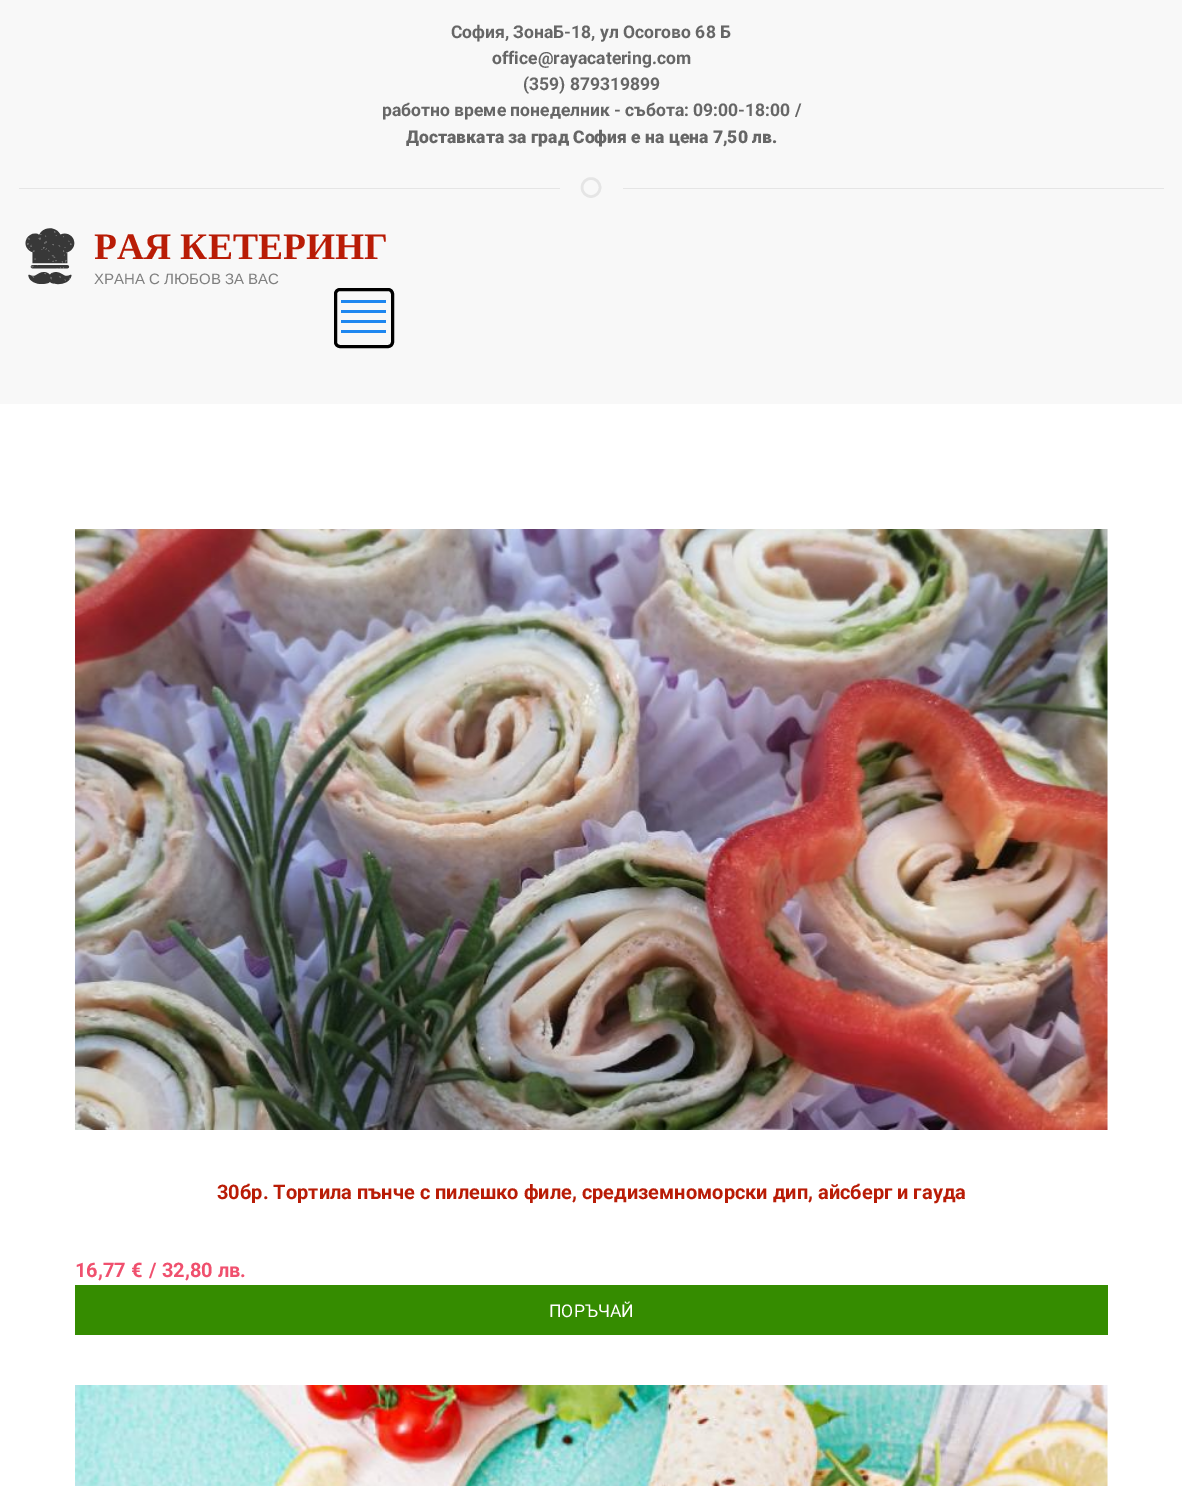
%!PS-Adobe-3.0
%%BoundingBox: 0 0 1182 1486
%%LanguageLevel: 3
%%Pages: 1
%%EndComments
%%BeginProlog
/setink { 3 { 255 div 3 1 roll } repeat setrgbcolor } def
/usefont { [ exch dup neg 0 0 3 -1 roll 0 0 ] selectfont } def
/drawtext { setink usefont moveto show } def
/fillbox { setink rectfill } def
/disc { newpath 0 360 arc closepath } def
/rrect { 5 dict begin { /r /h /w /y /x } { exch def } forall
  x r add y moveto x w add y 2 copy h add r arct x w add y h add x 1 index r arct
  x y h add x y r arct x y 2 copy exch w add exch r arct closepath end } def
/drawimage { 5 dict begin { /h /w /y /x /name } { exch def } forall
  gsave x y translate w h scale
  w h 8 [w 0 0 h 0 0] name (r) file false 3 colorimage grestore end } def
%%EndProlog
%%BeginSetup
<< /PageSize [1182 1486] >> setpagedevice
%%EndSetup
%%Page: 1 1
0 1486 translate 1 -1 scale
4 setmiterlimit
0 0 1182 1486 255 255 255 fillbox
0 0 1182 404 248 248 248 fillbox
(София, ЗонаБ-18, ул Осогово 68 Б) 451 38 /Roboto-Bold 17.5 102 102 102 drawtext
(office@rayacatering.com) 492 64 /Roboto-Bold 17.5 102 102 102 drawtext
(\(359\) 879319899) 523 90 /Roboto-Bold 17.5 102 102 102 drawtext
(работно време понеделник - събота: 09:00-18:00 /) 382 116 /Roboto-Bold 17.5 102 102 102 drawtext
(Доставката за град София е на цена 7,50 лв.) 406 143 /Roboto-Black 17.5 102 102 102 drawtext
229 229 229 setink
2.5 setlinewidth
591 187.5 9 disc stroke
19 188 541 1 229 229 229 fillbox
623 188 541 1 229 229 229 fillbox
(assets/img1.rgb) 25 228 50 57 drawimage
(РАЯ КЕТЕРИНГ) 94 259 /LiberationSerif-Bold 37.5 185 28 6 drawtext
(ХРАНА С ЛЮБОВ ЗА ВАС) 94 284 /LiberationSans-Regular 15 127 127 127 drawtext
0 0 0 setink
3 setlinewidth
335.5 289.5 57 57 4.5 rrect stroke
341 300 45 3 30 135 240 fillbox
341 310 45 3 30 135 240 fillbox
341 320 45 3 30 135 240 fillbox
341 330 45 3 30 135 240 fillbox
(assets/img2.rgb) 75 529 1033 601 drawimage
(30бр. Тортила пънче с пилешко филе, средиземноморски дип, айсберг и гауда) 217 1199 /Roboto-Bold 20 185 28 6 drawtext
(16,77 €) 75 1277 /Roboto-Bold 20 240 80 110 drawtext
(/) 149 1277 /Roboto-Bold 20 240 80 110 drawtext
(32,80 лв.) 162 1277 /Roboto-Bold 20 240 80 110 drawtext
75 1285 1033 50 53 140 0 fillbox
(ПОРЪЧАЙ) 549 1317 /Roboto-Regular 17.5 255 255 255 drawtext
(assets/img3.rgb) 75 1385 1033 101 drawimage
showpage
%%EOF
